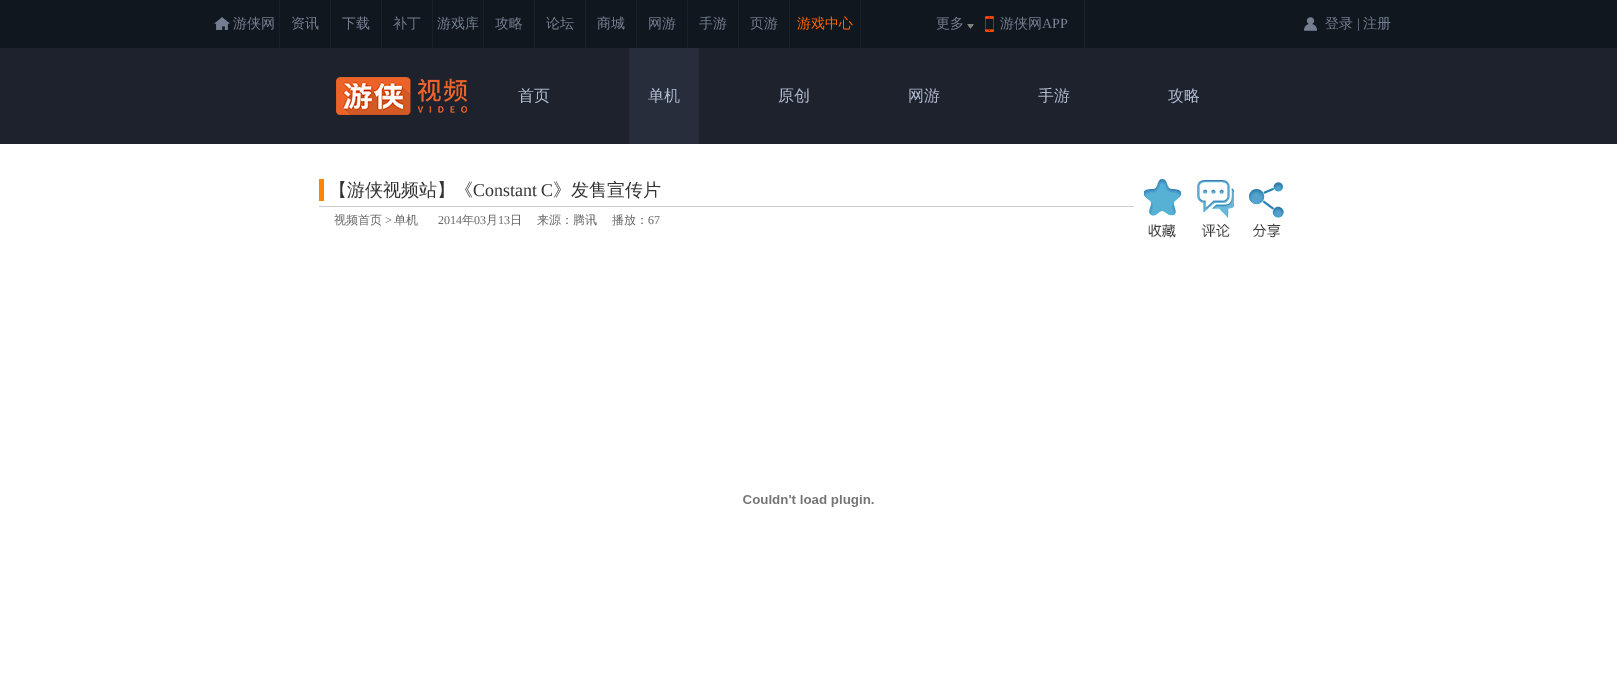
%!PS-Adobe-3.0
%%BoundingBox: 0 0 1617 700
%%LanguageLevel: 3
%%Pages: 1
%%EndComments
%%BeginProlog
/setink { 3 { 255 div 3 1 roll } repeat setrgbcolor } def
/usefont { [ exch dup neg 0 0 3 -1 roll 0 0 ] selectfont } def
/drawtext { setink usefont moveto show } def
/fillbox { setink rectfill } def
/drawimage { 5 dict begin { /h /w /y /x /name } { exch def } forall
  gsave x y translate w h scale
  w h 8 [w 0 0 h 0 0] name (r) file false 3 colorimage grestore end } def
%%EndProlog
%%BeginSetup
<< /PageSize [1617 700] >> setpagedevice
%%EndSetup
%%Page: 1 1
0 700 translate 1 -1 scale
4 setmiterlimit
0 0 1617 700 255 255 255 fillbox
0 0 1617 48 17 23 30 fillbox
(assets/img1.rgb) 214 17 16 13 drawimage
279 0 1 48 25 32 42 fillbox
(游侠网) 233 28 /WenQuanYiZenHei-Medium 14 115 126 145 drawtext
330 0 1 48 25 32 42 fillbox
(资讯) 291 28 /WenQuanYiZenHei-Medium 14 115 126 145 drawtext
381 0 1 48 25 32 42 fillbox
(下载) 342 28 /WenQuanYiZenHei-Medium 14 115 126 145 drawtext
432 0 1 48 25 32 42 fillbox
(补丁) 393 28 /WenQuanYiZenHei-Medium 14 115 126 145 drawtext
483 0 1 48 25 32 42 fillbox
(游戏库) 437 28 /WenQuanYiZenHei-Medium 14 115 126 145 drawtext
534 0 1 48 25 32 42 fillbox
(攻略) 495 28 /WenQuanYiZenHei-Medium 14 115 126 145 drawtext
585 0 1 48 25 32 42 fillbox
(论坛) 546 28 /WenQuanYiZenHei-Medium 14 115 126 145 drawtext
636 0 1 48 25 32 42 fillbox
(商城) 597 28 /WenQuanYiZenHei-Medium 14 115 126 145 drawtext
687 0 1 48 25 32 42 fillbox
(网游) 648 28 /WenQuanYiZenHei-Medium 14 115 126 145 drawtext
738 0 1 48 25 32 42 fillbox
(手游) 699 28 /WenQuanYiZenHei-Medium 14 115 126 145 drawtext
789 0 1 48 25 32 42 fillbox
(页游) 750 28 /WenQuanYiZenHei-Medium 14 115 126 145 drawtext
860 0 1 48 25 32 42 fillbox
(游戏中心) 797 28 /WenQuanYiZenHei-Medium 14 255 102 0 drawtext
(更多) 936 28 /WenQuanYiZenHei-Medium 14 115 126 145 drawtext
(assets/img2.rgb) 967 24 7 5 drawimage
(assets/img3.rgb) 985 16 9 16 drawimage
1084 0 1 48 30 34 45 fillbox
(游侠网) 1000 28 /WenQuanYiZenHei-Medium 14 115 126 145 drawtext
(APP) 1042 28 /LiberationSerif-Regular 14 115 126 145 drawtext
(assets/img4.rgb) 1304 17 13 14 drawimage
(登录) 1325 28 /WenQuanYiZenHei-Medium 14 115 126 145 drawtext
(|) 1357 28 /LiberationSerif-Regular 14 115 126 145 drawtext
(注册) 1363 28 /WenQuanYiZenHei-Medium 14 115 126 145 drawtext
0 48 1617 96 30 34 45 fillbox
(assets/img5.rgb) 336 77 131 38 drawimage
(首页) 518 101 /WenQuanYiZenHei-Medium 16 176 189 208 drawtext
629 48 70 96 40 45 59 fillbox
(单机) 648 101 /WenQuanYiZenHei-Medium 16 176 189 208 drawtext
(原创) 778 101 /WenQuanYiZenHei-Medium 16 176 189 208 drawtext
(网游) 908 101 /WenQuanYiZenHei-Medium 16 176 189 208 drawtext
(手游) 1038 101 /WenQuanYiZenHei-Medium 16 176 189 208 drawtext
(攻略) 1168 101 /WenQuanYiZenHei-Medium 16 176 189 208 drawtext
319 179 5 22 255 132 6 fillbox
(【游侠视频站】《) 329 196 /WenQuanYiZenHei-Medium 18 51 51 51 drawtext
(Constant C) 473 196 /LiberationSerif-Regular 18 51 51 51 drawtext
(》发售宣传片) 553 196 /WenQuanYiZenHei-Medium 18 51 51 51 drawtext
319 206 815 1 204 204 204 fillbox
(视频首页) 334 224 /WenQuanYiZenHei-Medium 12 102 102 102 drawtext
(>) 385 224 /LiberationSerif-Regular 12 102 102 102 drawtext
(单机) 394 224 /WenQuanYiZenHei-Medium 12 102 102 102 drawtext
(2014) 438 224 /LiberationSerif-Regular 12 102 102 102 drawtext
(年) 462 224 /WenQuanYiZenHei-Medium 12 102 102 102 drawtext
(03) 474 224 /LiberationSerif-Regular 12 102 102 102 drawtext
(月) 486 224 /WenQuanYiZenHei-Medium 12 102 102 102 drawtext
(13) 498 224 /LiberationSerif-Regular 12 102 102 102 drawtext
(日) 510 224 /WenQuanYiZenHei-Medium 12 102 102 102 drawtext
(来源：腾讯) 537 224 /WenQuanYiZenHei-Medium 12 102 102 102 drawtext
(播放：) 612 224 /WenQuanYiZenHei-Medium 12 102 102 102 drawtext
(67) 648 224 /LiberationSerif-Regular 12 102 102 102 drawtext
(assets/img6.rgb) 1144 179 38 59 drawimage
(assets/img7.rgb) 1197 180 37 58 drawimage
(assets/img8.rgb) 1249 182 35 56 drawimage
(assets/img9.rgb) 743 495 131 12 drawimage
showpage
%%EOF
